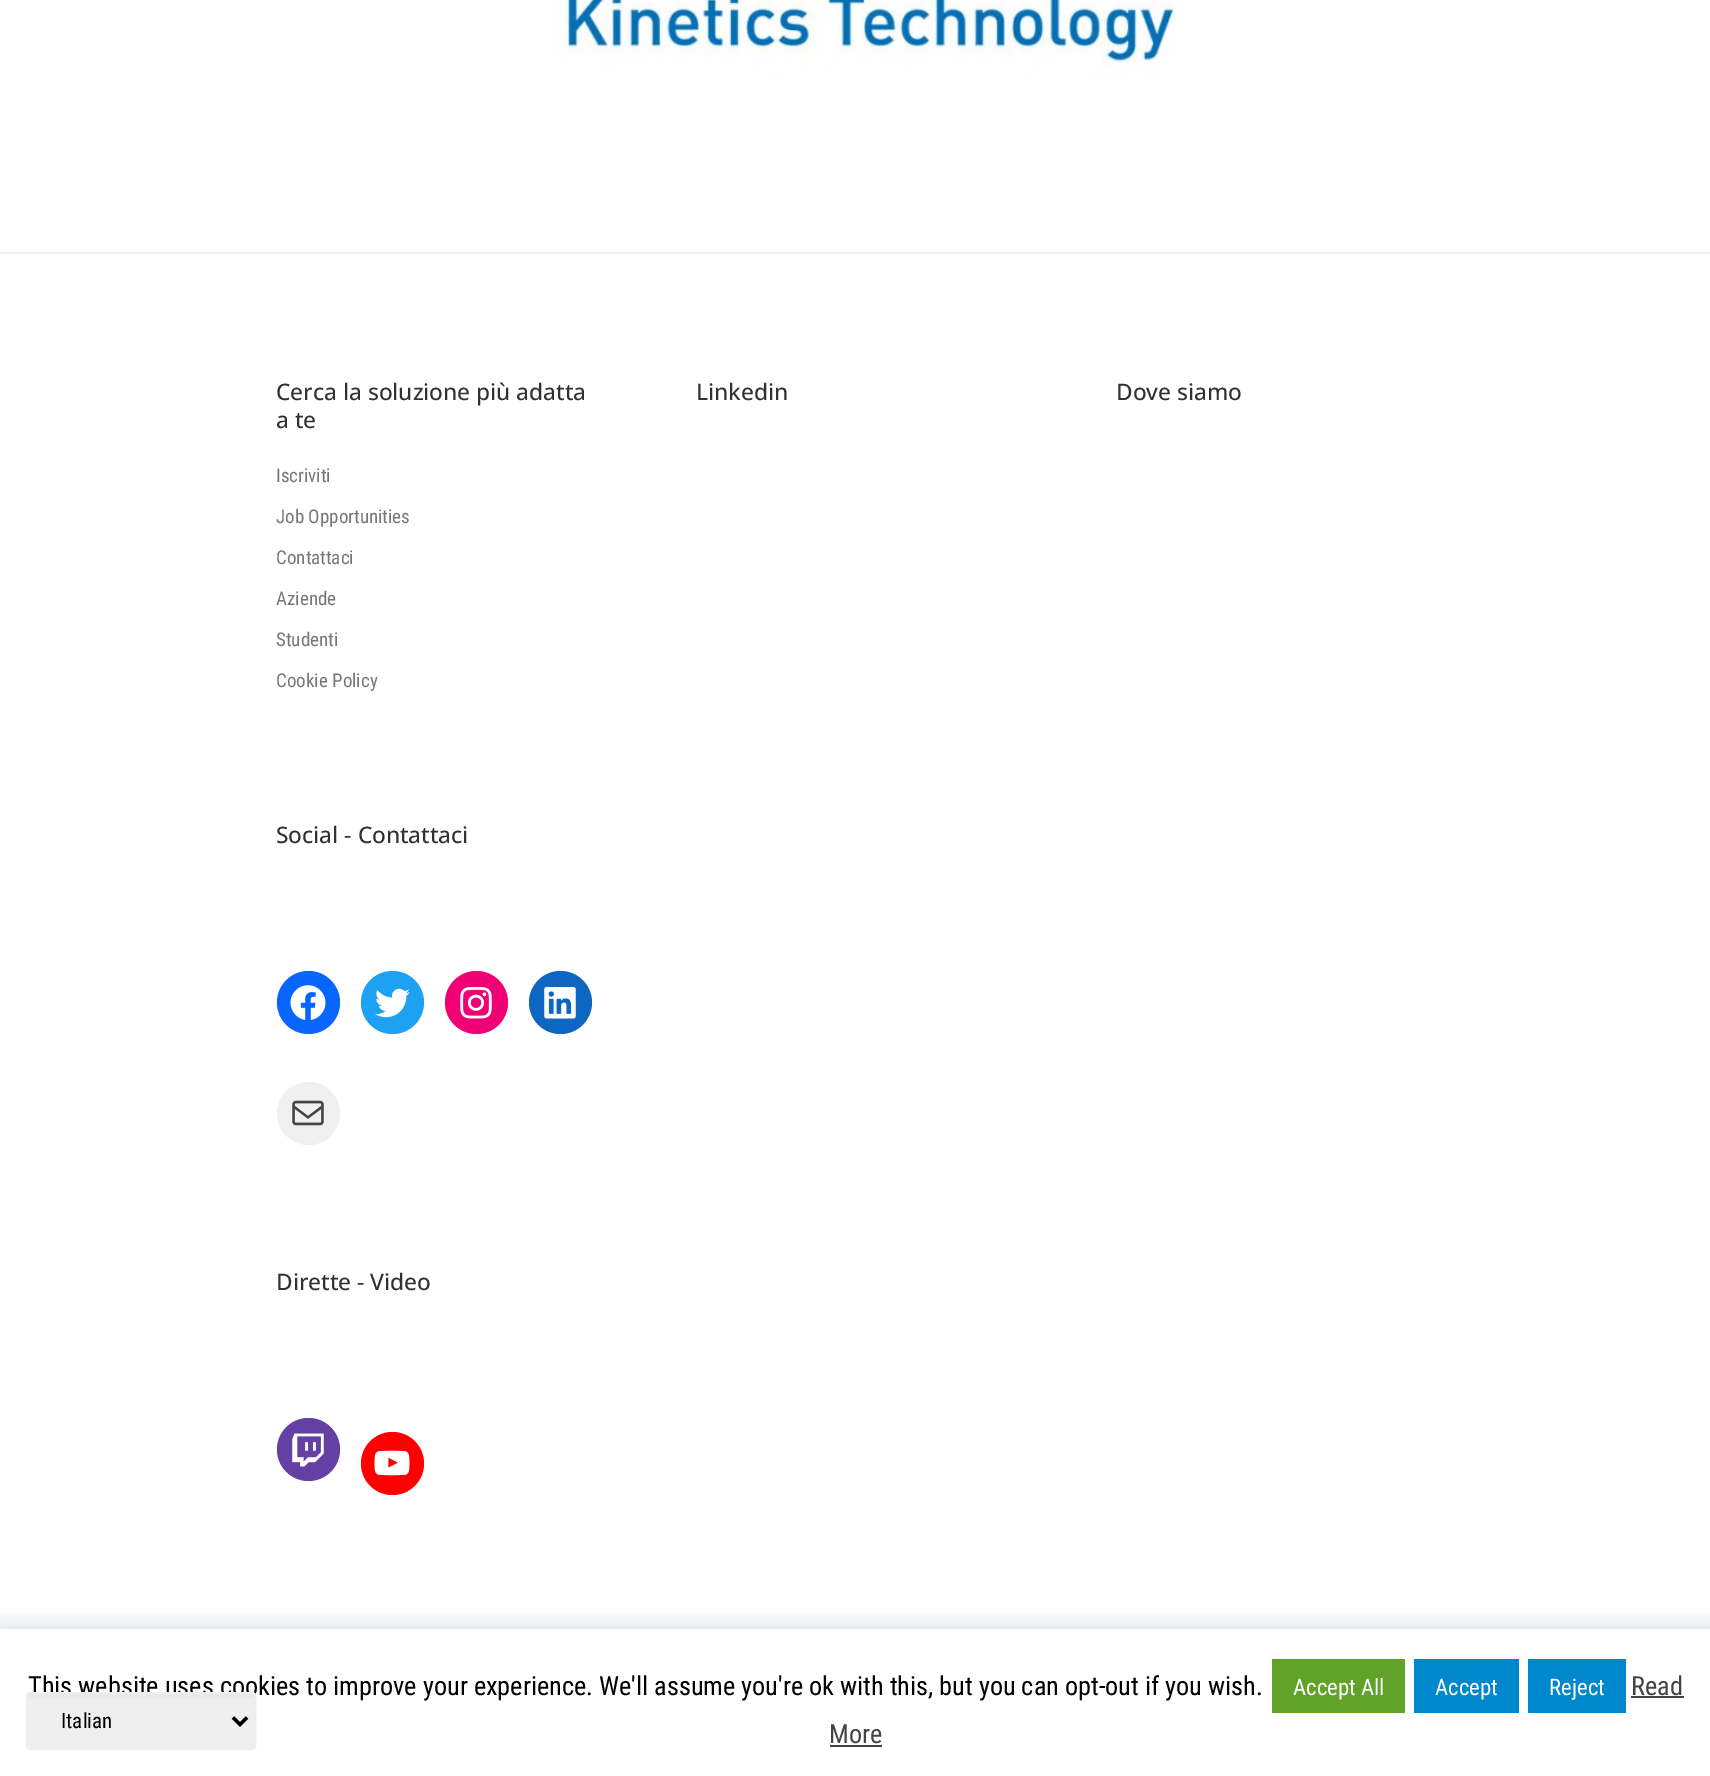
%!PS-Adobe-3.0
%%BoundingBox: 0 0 1710 1776
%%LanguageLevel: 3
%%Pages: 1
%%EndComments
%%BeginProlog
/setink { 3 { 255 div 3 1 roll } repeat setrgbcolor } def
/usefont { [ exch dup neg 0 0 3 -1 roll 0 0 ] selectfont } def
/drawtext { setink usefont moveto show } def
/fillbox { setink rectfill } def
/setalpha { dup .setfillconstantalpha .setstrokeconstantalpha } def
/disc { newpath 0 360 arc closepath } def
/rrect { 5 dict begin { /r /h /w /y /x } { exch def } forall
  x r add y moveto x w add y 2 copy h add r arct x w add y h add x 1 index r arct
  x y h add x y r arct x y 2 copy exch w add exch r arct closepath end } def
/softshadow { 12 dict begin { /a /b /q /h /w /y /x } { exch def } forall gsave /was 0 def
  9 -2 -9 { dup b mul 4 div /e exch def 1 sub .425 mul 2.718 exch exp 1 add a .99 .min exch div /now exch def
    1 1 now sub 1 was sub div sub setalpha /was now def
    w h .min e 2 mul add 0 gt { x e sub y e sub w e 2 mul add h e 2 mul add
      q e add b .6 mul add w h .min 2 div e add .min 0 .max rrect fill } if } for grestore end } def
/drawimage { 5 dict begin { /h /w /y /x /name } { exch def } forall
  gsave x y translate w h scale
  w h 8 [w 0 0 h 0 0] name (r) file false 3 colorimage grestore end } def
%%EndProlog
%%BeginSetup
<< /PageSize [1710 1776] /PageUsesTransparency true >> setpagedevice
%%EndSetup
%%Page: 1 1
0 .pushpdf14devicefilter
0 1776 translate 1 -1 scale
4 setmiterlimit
0 0 1710 1776 255 255 255 fillbox
(assets/img1.rgb) 554 0 623 75 drawimage
0 252 1710 2 236 238 239 fillbox
(Cerca la soluzione più adatta) 276 400 /OpenSans-Medium 22.75 48 49 51 drawtext
(a te) 276 428 /OpenSans-Medium 22.75 48 49 51 drawtext
(Iscriviti) 276 482 /RobotoCondensed-Regular 19 119 119 119 drawtext
(Job Opportunities) 276 523 /RobotoCondensed-Regular 19 119 119 119 drawtext
(Contattaci) 276 564 /RobotoCondensed-Regular 19 119 119 119 drawtext
(Aziende) 276 605 /RobotoCondensed-Regular 19 119 119 119 drawtext
(Studenti) 276 646 /RobotoCondensed-Regular 19 119 119 119 drawtext
(Cookie Policy) 276 687 /RobotoCondensed-Regular 19 119 119 119 drawtext
(Social - Contattaci) 276 843 /OpenSans-Medium 22.75 48 49 51 drawtext
8 102 255 setink
308.5 1002.5 31.5 disc fill
(assets/img2.rgb) 290 985 36 35 drawimage
29 161 242 setink
392.5 1002.5 31.5 disc fill
(assets/img3.rgb) 375 988 35 30 drawimage
240 0 117 setink
476.5 1002.5 31.5 disc fill
(assets/img4.rgb) 460 987 32 32 drawimage
13 102 194 setink
560.5 1002.5 31.5 disc fill
(assets/img5.rgb) 544 987 32 32 drawimage
240 240 240 setink
308.5 1113.5 31.5 disc fill
(assets/img6.rgb) 292 1100 32 26 drawimage
(Dirette - Video) 276 1290 /OpenSans-Medium 22.75 48 49 51 drawtext
100 64 164 setink
308.5 1449.5 31.5 disc fill
(assets/img7.rgb) 292 1433 32 34 drawimage
255 0 0 setink
392.5 1463.5 31.5 disc fill
(assets/img8.rgb) 374 1450 36 26 drawimage
(Linkedin) 696 400 /OpenSans-Medium 22.75 48 49 51 drawtext
(Dove siamo) 1116 400 /OpenSans-Medium 22.75 48 49 51 drawtext
0 1614 1710 15 247 248 249 fillbox
172 171 171 setink
0 1628 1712 147 0 9 0.3 softshadow
0 1629 1710 147 255 255 255 fillbox
(This website uses cookies to improve your experience. We'll assume you're ok with this, but you can opt-out if you wish.) 28 1695 /RobotoCondensed-Regular 26.25 0 0 0 drawtext
1272 1659 133 54 97 162 41 fillbox
(Accept All) 1293 1695 /RobotoCondensed-Regular 22.75 255 255 255 drawtext
1414 1659 105 54 0 136 204 fillbox
(Accept) 1435 1695 /RobotoCondensed-Regular 22.75 255 255 255 drawtext
1528 1659 98 54 0 136 204 fillbox
(Reject) 1549 1695 /RobotoCondensed-Regular 22.75 255 255 255 drawtext
(Read) 1631 1695 /RobotoCondensed-Regular 26.25 68 68 68 drawtext
1631 1696 53 2 68 68 68 fillbox
(More) 829 1743 /RobotoCondensed-Regular 26.25 68 68 68 drawtext
830 1745 52 2 68 68 68 fillbox
239 239 239 setink
26 1692 230 58 4 rrect fill
233 233 233 setink
30 1698 moveto 252 1698 lineto 253 1698 254 1698 254 1699 curveto 254 1697 255 1694 252 1694 curveto 29 1694 lineto 27 1695 28 1698 28 1699 curveto 28 1698 29 1698 30 1698 curveto closepath fill
236 238 239 setink
2 setlinewidth
27 1693 228 56 3 rrect stroke
0 0 0 setink
3.5 setlinewidth
233 1717.5 moveto 240 1724.5 lineto 247 1717.5 lineto stroke
(Italian) 61 1728 /RobotoCondensed-Regular 21 0 0 0 drawtext
.poppdf14devicefilter showpage
%%EOF
